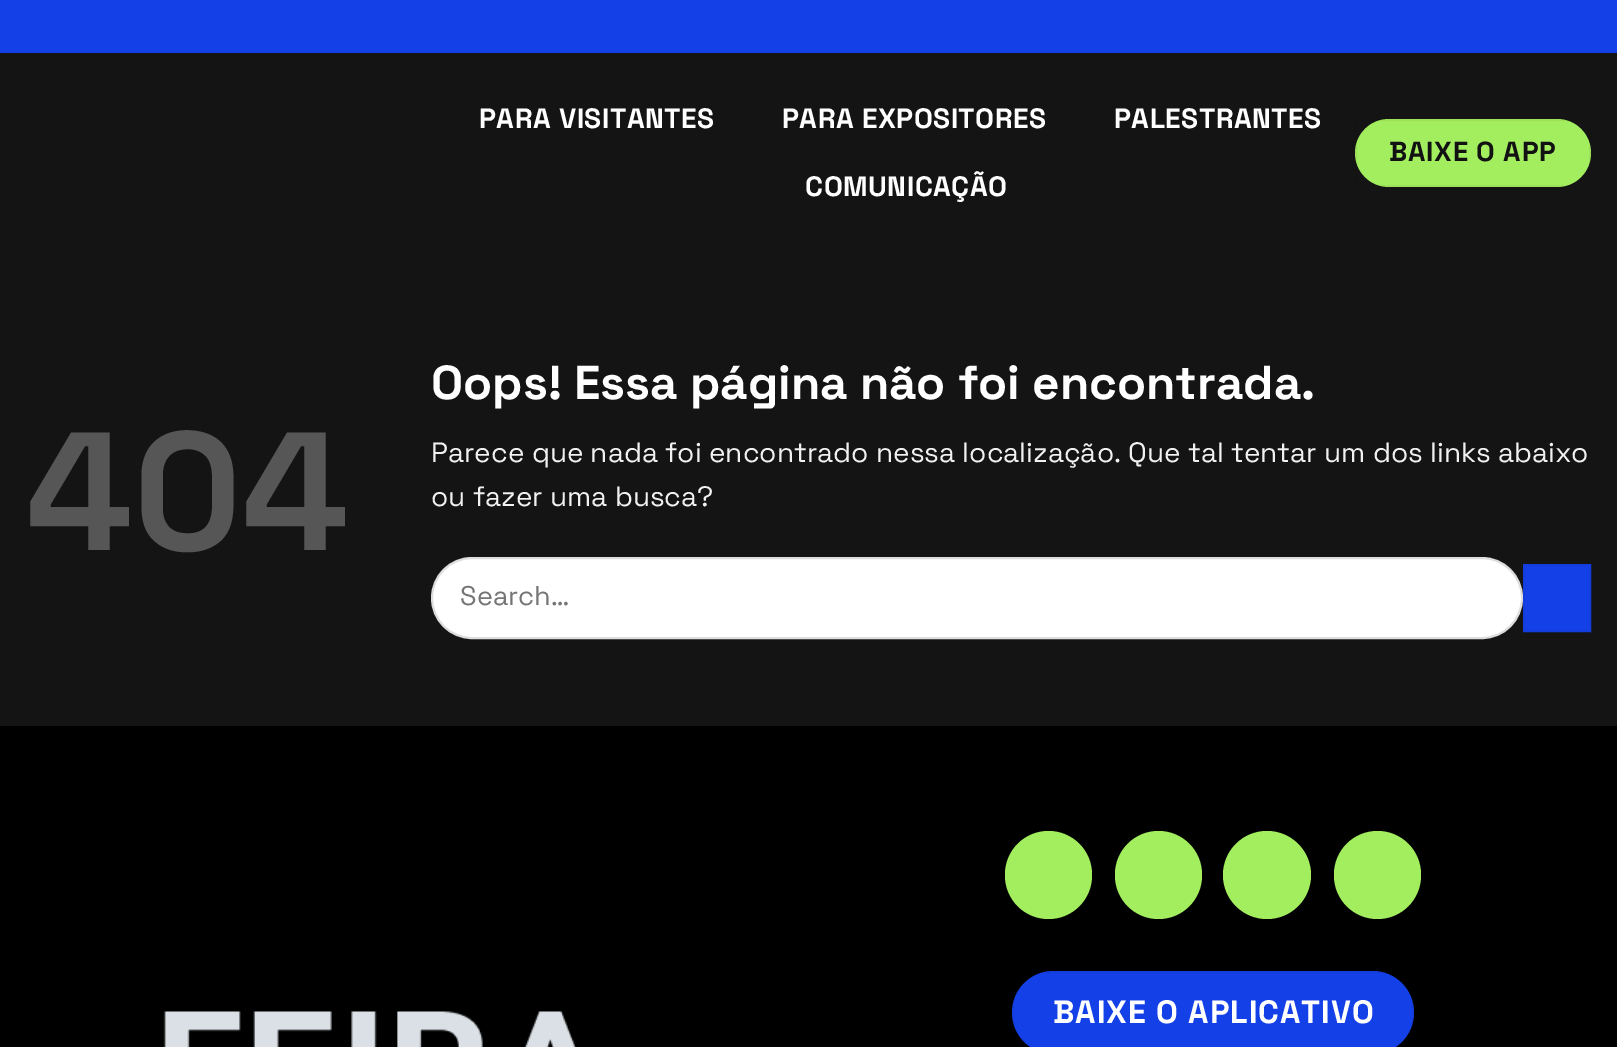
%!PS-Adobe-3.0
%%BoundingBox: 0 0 1617 1047
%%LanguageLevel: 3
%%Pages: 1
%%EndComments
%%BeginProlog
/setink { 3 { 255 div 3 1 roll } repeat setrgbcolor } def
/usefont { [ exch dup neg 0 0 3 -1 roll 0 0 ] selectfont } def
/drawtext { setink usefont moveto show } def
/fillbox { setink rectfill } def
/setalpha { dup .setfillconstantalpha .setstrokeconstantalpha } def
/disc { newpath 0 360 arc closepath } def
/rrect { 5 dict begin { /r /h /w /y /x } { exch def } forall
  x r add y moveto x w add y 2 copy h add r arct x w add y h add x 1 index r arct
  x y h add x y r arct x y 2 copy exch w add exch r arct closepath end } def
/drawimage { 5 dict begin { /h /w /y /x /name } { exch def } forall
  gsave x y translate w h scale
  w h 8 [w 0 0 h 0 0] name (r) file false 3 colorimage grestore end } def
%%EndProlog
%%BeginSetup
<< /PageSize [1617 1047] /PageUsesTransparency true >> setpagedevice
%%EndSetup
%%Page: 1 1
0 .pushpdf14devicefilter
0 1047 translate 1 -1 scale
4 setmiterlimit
0 0 1617 1047 20 20 20 fillbox
0 0 1617 53 20 64 232 fillbox
/SpaceGrotesk-Bold 28 usefont
255 255 255 setink
479 128 moveto 0.5 0 (PARA VISITANTES) ashow
782 128 moveto 0.5 0 (PARA EXPOSITORES) ashow
1114 128 moveto 0.5 0 (PALESTRANTES) ashow
805 196 moveto 0.5 0 (COMUNICAÇÃO) ashow
163 238 94 setink
1355 119 236 68 34 rrect fill
0.05 setalpha
0 0 0 setink
2 setlinewidth
1356 120 234 66 rectstroke
/SpaceGrotesk-Bold 27.5 usefont
1 setalpha
18 18 18 setink
1389 161 moveto 0.75 0 (BAIXE O APP) ashow
(404) 26 550 /SpaceGrotesk-Bold 168 86 86 86 drawtext
(Oops! Essa página não foi encontrada.) 431 399 /SpaceGrotesk-Bold 47.6 255 255 255 drawtext
(Parece que nada foi encontrado nessa localização. Que tal tentar um dos links abaixo) 431 462 /SpaceGrotesk-Regular 28 241 241 241 drawtext
(ou fazer uma busca?) 431 506 /SpaceGrotesk-Regular 28 241 241 241 drawtext
255 255 255 setink
432 558 1090 80 40 rrect gsave fill grestore
221 221 221 setink
stroke
(Search…) 460 605 /SpaceGrotesk-Regular 27 117 117 117 drawtext
20 64 232 setink
1524 565 moveto 1590 565 lineto 1590 631 lineto 1524 631 lineto closepath gsave fill grestore
19 61 220 setink
stroke
0 726 1617 321 0 0 0 fillbox
(assets/img1.rgb) 163 1011 414 36 drawimage
163 238 94 setink
1005 831 87 88 43.5 rrect fill
1115 831 87 88 43.5 rrect fill
1267 875 44 disc fill
1334 831 87 88 43.5 rrect fill
20 64 232 setink
1012 971 402 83 41.5 rrect fill
0.05 setalpha
0 0 0 setink
1013 972 400 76 rectstroke
/SpaceGrotesk-Bold 32.25 usefont
1 setalpha
255 255 255 setink
1053 1023 moveto 1 0 (BAIXE O APLICATIVO) ashow
.poppdf14devicefilter showpage
%%EOF
